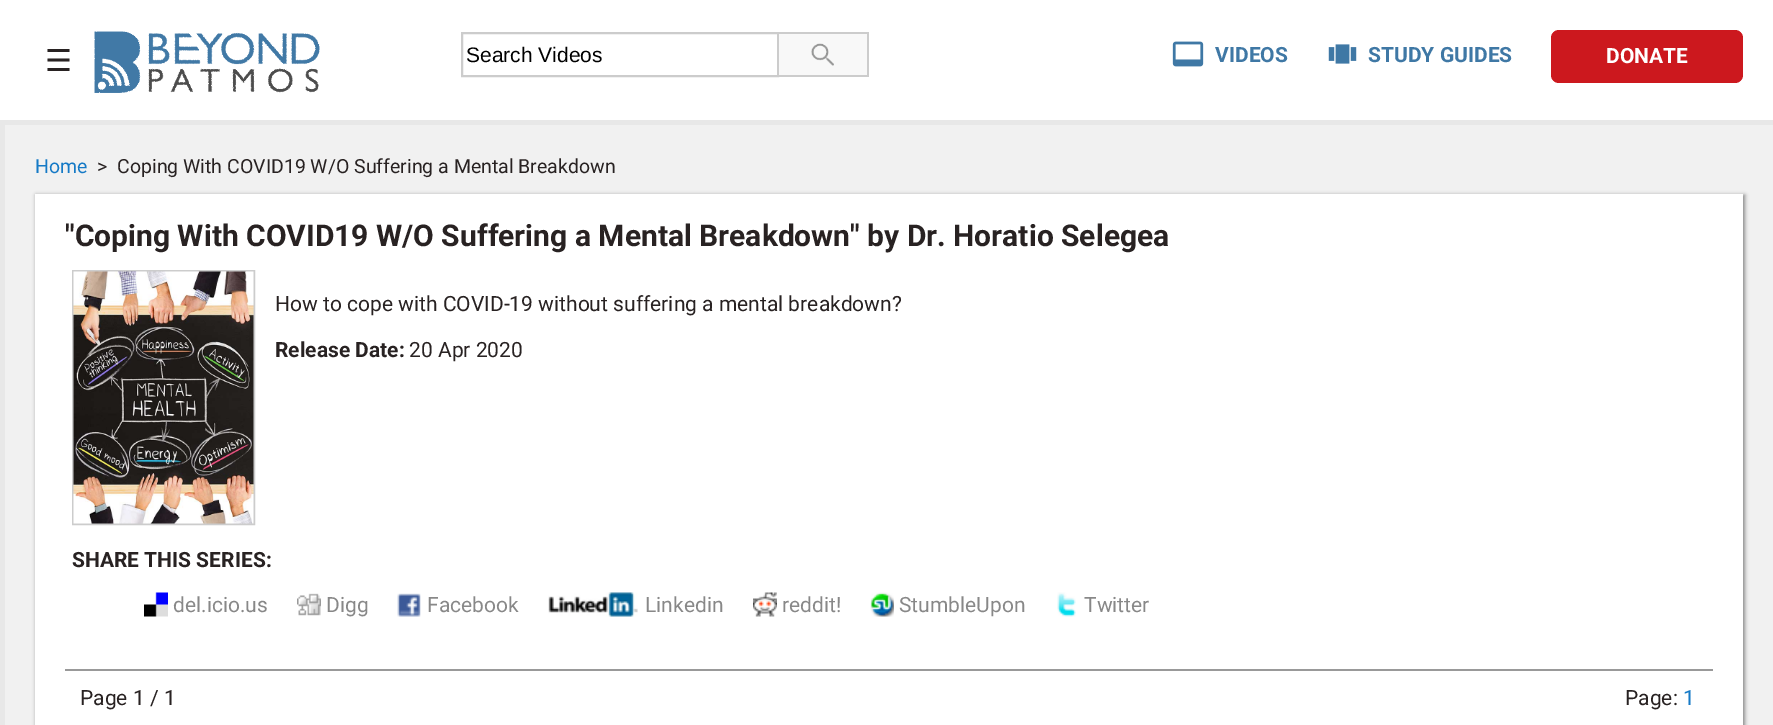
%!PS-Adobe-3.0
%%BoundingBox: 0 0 1773 725
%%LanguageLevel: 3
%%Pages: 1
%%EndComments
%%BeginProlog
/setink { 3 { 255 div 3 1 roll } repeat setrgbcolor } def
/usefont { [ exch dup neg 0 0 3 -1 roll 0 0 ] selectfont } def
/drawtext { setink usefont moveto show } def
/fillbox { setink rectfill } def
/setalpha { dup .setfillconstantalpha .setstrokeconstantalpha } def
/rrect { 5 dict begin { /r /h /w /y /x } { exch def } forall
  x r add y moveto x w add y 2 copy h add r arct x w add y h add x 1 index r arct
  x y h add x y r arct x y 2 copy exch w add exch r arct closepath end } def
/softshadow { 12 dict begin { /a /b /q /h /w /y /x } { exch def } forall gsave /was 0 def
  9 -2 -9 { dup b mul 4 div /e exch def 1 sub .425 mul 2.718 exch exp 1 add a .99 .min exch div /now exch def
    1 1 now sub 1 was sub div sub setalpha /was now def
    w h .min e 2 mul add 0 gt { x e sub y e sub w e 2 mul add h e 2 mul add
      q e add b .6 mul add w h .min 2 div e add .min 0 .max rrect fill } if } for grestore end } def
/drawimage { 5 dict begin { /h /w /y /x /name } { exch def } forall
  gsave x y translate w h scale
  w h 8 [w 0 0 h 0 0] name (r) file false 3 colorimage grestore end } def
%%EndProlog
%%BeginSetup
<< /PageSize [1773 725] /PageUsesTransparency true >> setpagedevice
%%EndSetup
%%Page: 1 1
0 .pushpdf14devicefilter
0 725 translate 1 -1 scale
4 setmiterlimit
0 0 1773 725 241 241 241 fillbox
0 0 1773 120 255 255 255 fillbox
0 120 1773 5 232 232 232 fillbox
(☰) 45 71 /DejaVuSans-Regular 30 40 34 34 drawtext
(assets/img1.rgb) 94 31 226 62 drawimage
204 204 204 setink
2 setlinewidth
462 33 316 43 rectstroke
(Search Videos) 466 62 /LiberationSans-Regular 21 0 0 0 drawtext
779 34 88 41 248 248 248 fillbox
779 32 90 2 204 204 204 fillbox
867 32 2 45 204 204 204 fillbox
779 75 90 2 204 204 204 fillbox
(assets/img2.rgb) 811 43 23 23 drawimage
(assets/img3.rgb) 1172 41 32 26 drawimage
(VIDEOS) 1215 62 /Roboto-Bold 21 63 120 165 drawtext
(assets/img4.rgb) 1328 44 29 20 drawimage
(STUDY GUIDES) 1368 62 /Roboto-Bold 21 63 120 165 drawtext
204 24 30 setink
1551 30 192 53 8 rrect fill
(DONATE) 1606 63 /Roboto-Bold 21 255 255 255 drawtext
0 125 5 600 232 232 232 fillbox
(Home) 35 173 /Roboto-Regular 19.5 22 122 198 drawtext
(>) 97 173 /Roboto-Regular 19.5 40 34 34 drawtext
(Coping With COVID19 W/O Suffering a Mental Breakdown) 117 173 /Roboto-Regular 19.5 40 34 34 drawtext
136 136 136 setink
36 195 1709 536 0 2 1 softshadow
35 194 1708 531 255 255 255 fillbox
("Coping With COVID19 W/O Suffering a Mental Breakdown" by Dr. Horatio Selegea) 65 246 /Roboto-Bold 30 40 34 34 drawtext
65 669 1648 2 153 153 153 fillbox
204 204 204 setink
73 271 181 253 rectstroke
(assets/img5.rgb) 73 271 181 253 drawimage
(How to cope with COVID-19 without suffering a mental breakdown?) 275 311 /Roboto-Regular 21 40 34 34 drawtext
(Release Date:) 275 357 /Roboto-Bold 21 40 34 34 drawtext
(20 Apr 2020) 409 357 /Roboto-Regular 21 40 34 34 drawtext
(SHARE THIS SERIES:) 72 567 /Roboto-Bold 21 40 34 34 drawtext
(assets/img6.rgb) 144 592 24 25 drawimage
(del.icio.us) 173 612 /Roboto-Regular 21 136 136 136 drawtext
(assets/img7.rgb) 297 593 24 23 drawimage
(Digg) 326 612 /Roboto-Regular 21 136 136 136 drawtext
(assets/img8.rgb) 397 593 24 24 drawimage
(Facebook) 427 612 /Roboto-Regular 21 136 136 136 drawtext
(assets/img9.rgb) 548 592 90 25 drawimage
(Linkedin) 645 612 /Roboto-Regular 21 136 136 136 drawtext
(assets/img10.rgb) 753 592 24 25 drawimage
(reddit!) 782 612 /Roboto-Regular 21 136 136 136 drawtext
(assets/img11.rgb) 870 592 24 25 drawimage
(StumbleUpon) 899 612 /Roboto-Regular 21 136 136 136 drawtext
(assets/img12.rgb) 1057 592 19 25 drawimage
(Twitter) 1084 612 /Roboto-Regular 21 136 136 136 drawtext
(Page 1 / 1) 80 705 /Roboto-Regular 21 40 34 34 drawtext
(Page:) 1625 705 /Roboto-Regular 21 40 34 34 drawtext
(1) 1683 705 /Roboto-Regular 21 22 122 198 drawtext
.poppdf14devicefilter showpage
%%EOF
